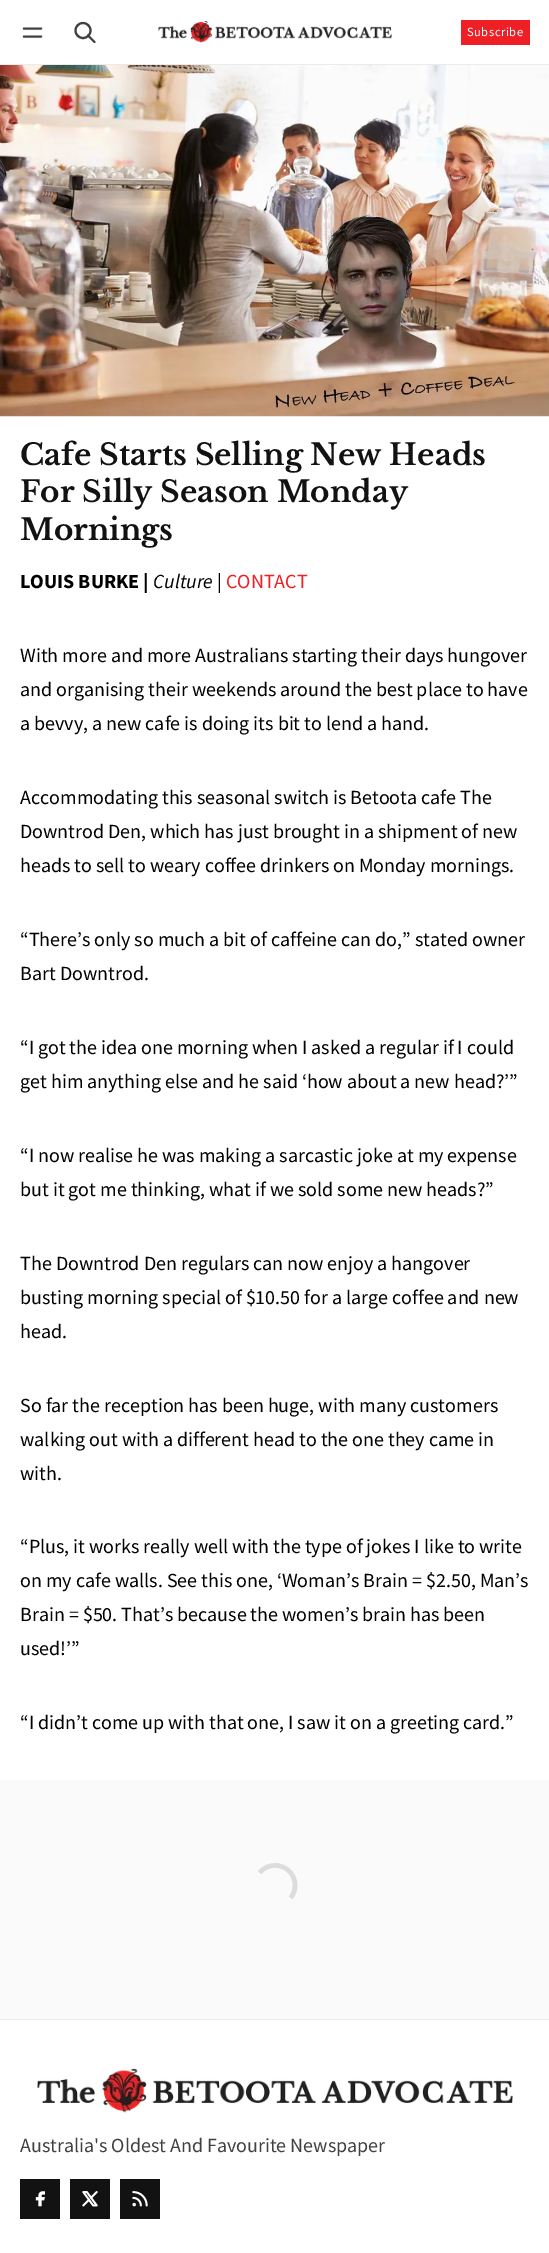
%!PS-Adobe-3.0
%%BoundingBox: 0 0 549 2253
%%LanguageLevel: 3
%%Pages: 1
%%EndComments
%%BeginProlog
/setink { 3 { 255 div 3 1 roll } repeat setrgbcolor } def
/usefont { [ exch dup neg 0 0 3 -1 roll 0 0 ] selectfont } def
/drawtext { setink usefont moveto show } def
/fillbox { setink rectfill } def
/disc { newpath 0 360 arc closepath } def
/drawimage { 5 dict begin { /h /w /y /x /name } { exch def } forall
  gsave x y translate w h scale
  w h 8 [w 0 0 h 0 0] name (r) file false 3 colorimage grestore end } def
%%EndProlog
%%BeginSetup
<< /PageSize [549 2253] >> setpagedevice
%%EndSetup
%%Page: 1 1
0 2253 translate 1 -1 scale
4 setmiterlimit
0 0 549 2253 255 255 255 fillbox
0 64 549 1 235 235 235 fillbox
65 65 65 setink
2.1 setlinewidth
1 setlinecap
1 setlinejoin
24 28.5 moveto 41 28.5 lineto 24 36.5 moveto 41 36.5 lineto stroke
0 setlinecap
0 setlinejoin
83 30.5 7.5 disc stroke
1 setlinecap
1 setlinejoin
94.5 42 moveto 88 35.5 lineto stroke
(assets/img1.rgb) 158 21 234 22 drawimage
461 20 69 25 238 32 37 fillbox
/SourceSansPro-Regular 12.5 usefont
255 255 255 setink
467 36 moveto 0.5 0 (Subscribe) ashow
(assets/img2.rgb) 0 65 549 352 drawimage
(Cafe Starts Selling New Heads) 20 465 /LibreBaskerville-Bold 29.5 18 18 18 drawtext
(For Silly Season Monday) 20 502 /LibreBaskerville-Bold 29.5 18 18 18 drawtext
(Mornings) 20 540 /LibreBaskerville-Bold 29.5 18 18 18 drawtext
(LOUIS BURKE |) 20 588 /SourceSansPro-Bold 20 0 0 0 drawtext
(Culture) 153 588 /SourceSansPro-Italic 20 0 0 0 drawtext
(|) 217 588 /SourceSansPro-Regular 20 0 0 0 drawtext
(CONTACT) 226 588 /SourceSansPro-Regular 20 238 32 37 drawtext
(With more and more Australians starting their days hungover) 20 662 /SourceSansPro-Regular 20 0 0 0 drawtext
(and organising their weekends around the best place to have) 20 696 /SourceSansPro-Regular 20 0 0 0 drawtext
(a bevvy, a new cafe is doing its bit to lend a hand.) 20 730 /SourceSansPro-Regular 20 0 0 0 drawtext
(Accommodating this seasonal switch is Betoota cafe The) 20 804 /SourceSansPro-Regular 20 0 0 0 drawtext
(Downtrod Den, which has just brought in a shipment of new) 20 838 /SourceSansPro-Regular 20 0 0 0 drawtext
(heads to sell to weary coffee drinkers on Monday mornings.) 20 872 /SourceSansPro-Regular 20 0 0 0 drawtext
(“There’s only so much a bit of caffeine can do,” stated owner) 20 946 /SourceSansPro-Regular 20 0 0 0 drawtext
(Bart Downtrod.) 20 980 /SourceSansPro-Regular 20 0 0 0 drawtext
(“I got the idea one morning when I asked a regular if I could) 20 1054 /SourceSansPro-Regular 20 0 0 0 drawtext
(get him anything else and he said ‘how about a new head?’”) 20 1088 /SourceSansPro-Regular 20 0 0 0 drawtext
(“I now realise he was making a sarcastic joke at my expense) 20 1162 /SourceSansPro-Regular 20 0 0 0 drawtext
(but it got me thinking, what if we sold some new heads?”) 20 1196 /SourceSansPro-Regular 20 0 0 0 drawtext
(The Downtrod Den regulars can now enjoy a hangover) 20 1270 /SourceSansPro-Regular 20 0 0 0 drawtext
(busting morning special of $10.50 for a large coffee and new) 20 1304 /SourceSansPro-Regular 20 0 0 0 drawtext
(head.) 20 1338 /SourceSansPro-Regular 20 0 0 0 drawtext
(So far the reception has been huge, with many customers) 20 1412 /SourceSansPro-Regular 20 0 0 0 drawtext
(walking out with a different head to the one they came in) 20 1446 /SourceSansPro-Regular 20 0 0 0 drawtext
(with.) 20 1480 /SourceSansPro-Regular 20 0 0 0 drawtext
(“Plus, it works really well with the type of jokes I like to write) 20 1553 /SourceSansPro-Regular 20 0 0 0 drawtext
(on my cafe walls. See this one, ‘Woman’s Brain = $2.50, Man’s) 20 1587 /SourceSansPro-Regular 20 0 0 0 drawtext
(Brain = $50. That’s because the women’s brain has been) 20 1621 /SourceSansPro-Regular 20 0 0 0 drawtext
(used!’”) 20 1655 /SourceSansPro-Regular 20 0 0 0 drawtext
(“I didn’t come up with that one, I saw it on a greeting card.”) 20 1729 /SourceSansPro-Regular 20 0 0 0 drawtext
0 1780 549 239 250 250 250 fillbox
(assets/img3.rgb) 258 1863 40 37 drawimage
0 2019 549 1 235 235 235 fillbox
(assets/img4.rgb) 37 2068 476 45 drawimage
(Australia's Oldest And Favourite Newspaper) 20 2152 /SourceSansPro-Regular 20 65 65 65 drawtext
20 2179 40 40 18 18 18 fillbox
(assets/img5.rgb) 35 2191 10 16 drawimage
70 2179 40 40 18 18 18 fillbox
(assets/img6.rgb) 82 2191 16 16 drawimage
120 2179 40 40 18 18 18 fillbox
(assets/img7.rgb) 132 2191 16 16 drawimage
showpage
%%EOF
